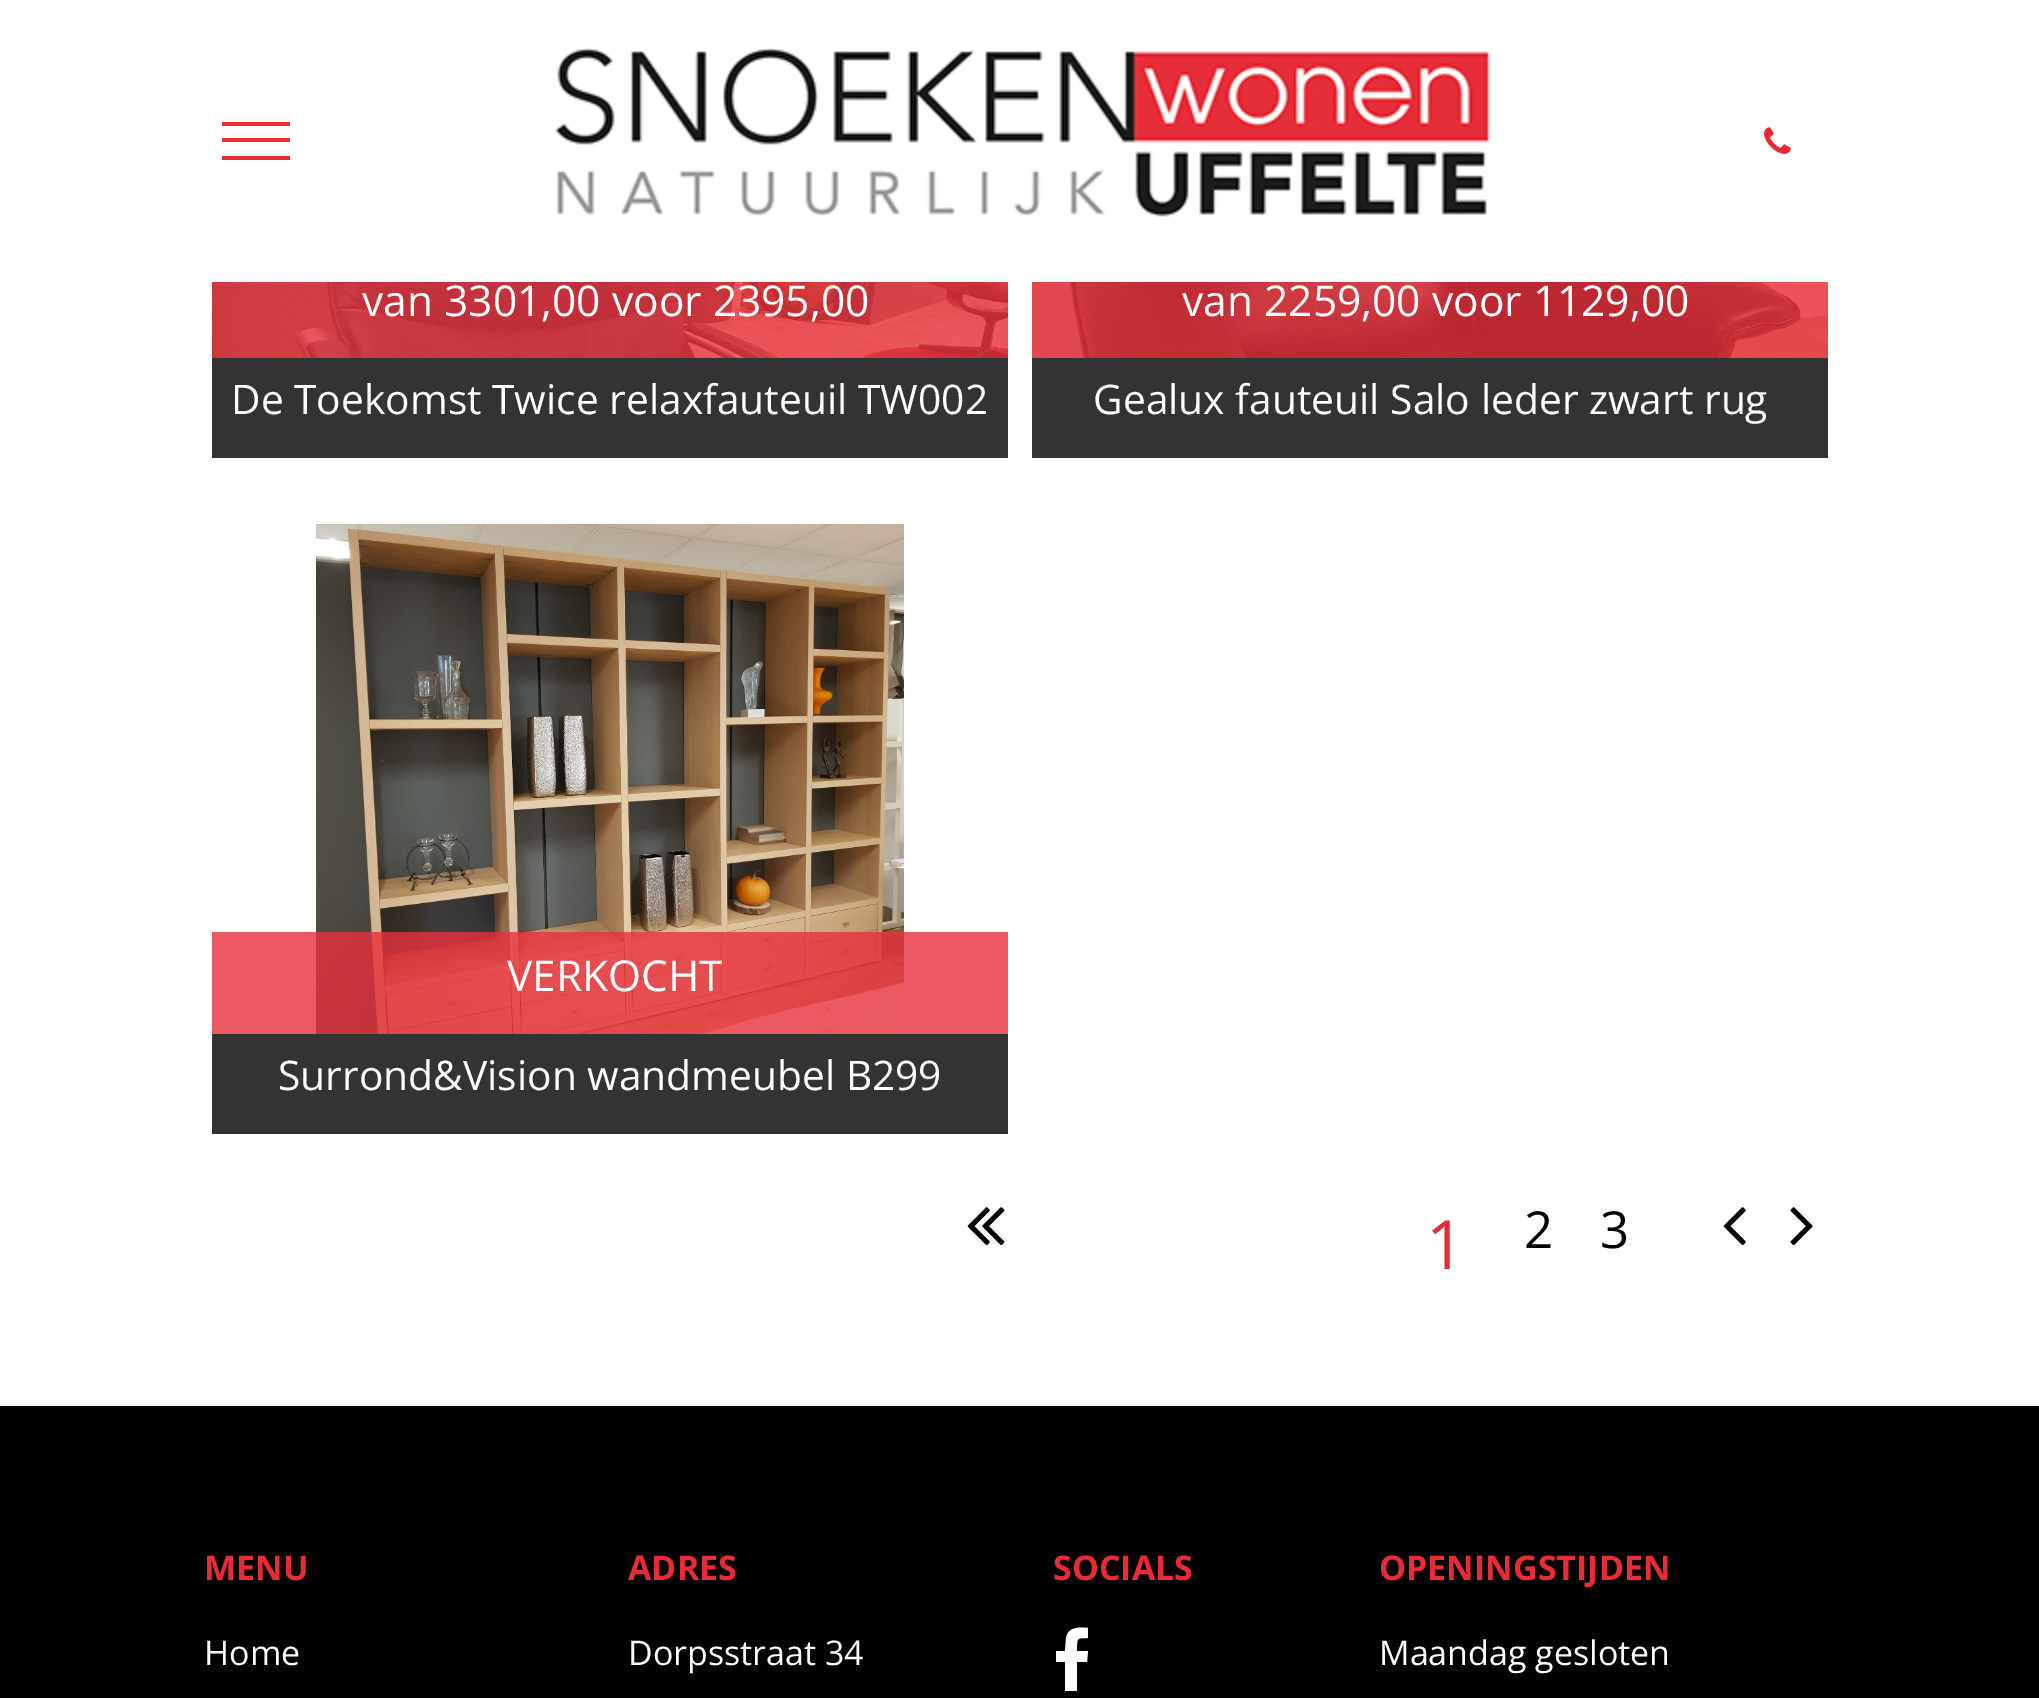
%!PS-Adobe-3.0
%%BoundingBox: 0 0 2039 1698
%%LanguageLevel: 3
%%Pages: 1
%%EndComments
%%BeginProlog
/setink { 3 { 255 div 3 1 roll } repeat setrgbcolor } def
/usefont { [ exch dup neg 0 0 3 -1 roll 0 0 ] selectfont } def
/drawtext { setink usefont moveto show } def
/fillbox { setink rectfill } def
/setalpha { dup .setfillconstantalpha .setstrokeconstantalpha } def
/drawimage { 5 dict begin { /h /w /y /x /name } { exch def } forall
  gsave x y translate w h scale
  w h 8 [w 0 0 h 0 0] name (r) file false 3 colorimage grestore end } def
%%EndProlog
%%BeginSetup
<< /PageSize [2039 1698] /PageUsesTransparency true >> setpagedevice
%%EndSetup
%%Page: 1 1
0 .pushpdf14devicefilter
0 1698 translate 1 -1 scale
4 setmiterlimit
0 0 2039 1698 255 255 255 fillbox
222 138 68 4 231 44 53 fillbox
222 122 68 4 231 44 53 fillbox
222 156 68 4 231 44 53 fillbox
(assets/img1.rgb) 555 47 935 170 drawimage
(assets/img2.rgb) 1764 127 27 27 drawimage
(assets/img3.rgb) 212 282 796 76 drawimage
0.8 setalpha
212 282 796 76 231 48 61 fillbox
1 setalpha
(van 3301,00 voor 2395,00) 362 316 /OpenSans-Regular 42.5 255 255 255 drawtext
212 358 796 100 51 51 51 fillbox
(De Toekomst Twice relaxfauteuil TW002) 231 414 /OpenSans-Regular 40.75 255 255 255 drawtext
(assets/img4.rgb) 1032 282 796 76 drawimage
0.8 setalpha
1032 282 796 76 231 48 61 fillbox
1 setalpha
(van 2259,00 voor 1129,00) 1182 316 /OpenSans-Regular 42.5 255 255 255 drawtext
1032 358 796 100 51 51 51 fillbox
(Gealux fauteuil Salo leder zwart rug) 1093 414 /OpenSans-Regular 40.75 255 255 255 drawtext
(assets/img5.rgb) 316 524 588 510 drawimage
0.8 setalpha
212 932 796 102 231 48 61 fillbox
1 setalpha
(VERKOCHT) 507 991 /OpenSans-Regular 42.5 255 255 255 drawtext
212 1034 796 100 51 51 51 fillbox
(Surrond&Vision wandmeubel B299) 278 1090 /OpenSans-Regular 40.75 255 255 255 drawtext
(assets/img6.rgb) 967 1207 38 39 drawimage
(1) 1426 1269 /OpenSans-Regular 68 231 44 53 drawtext
(2) 1524 1248 /OpenSans-Regular 51 0 0 0 drawtext
(3) 1600 1248 /OpenSans-Regular 51 0 0 0 drawtext
(assets/img7.rgb) 1723 1207 23 39 drawimage
(assets/img8.rgb) 1790 1207 23 39 drawimage
0 1406 2039 292 0 0 0 fillbox
(MENU) 204 1580 /OpenSans-Bold 34 231 44 53 drawtext
(Home) 204 1665 /OpenSans-Regular 34 255 255 255 drawtext
(ADRES) 628 1580 /OpenSans-Bold 34 231 44 53 drawtext
(Dorpsstraat 34) 628 1665 /OpenSans-Regular 34 255 255 255 drawtext
(SOCIALS) 1053 1580 /OpenSans-Bold 34 231 44 53 drawtext
255 255 255 setink
1088 1628 moveto 1088 1638 lineto 1076 1638 1077 1638 1077 1651 curveto 1088 1651 lineto 1087 1662 lineto 1077 1662 lineto 1077 1691 lineto 1065 1691 lineto 1065 1662 lineto 1056 1662 lineto 1056 1651 lineto 1065 1651 lineto 1066 1639 lineto 1067 1627 1079 1627 1088 1628 curveto closepath fill
(OPENINGSTIJDEN) 1379 1580 /OpenSans-Bold 34 231 44 53 drawtext
(Maandag gesloten) 1379 1665 /OpenSans-Regular 34 255 255 255 drawtext
.poppdf14devicefilter showpage
%%EOF
